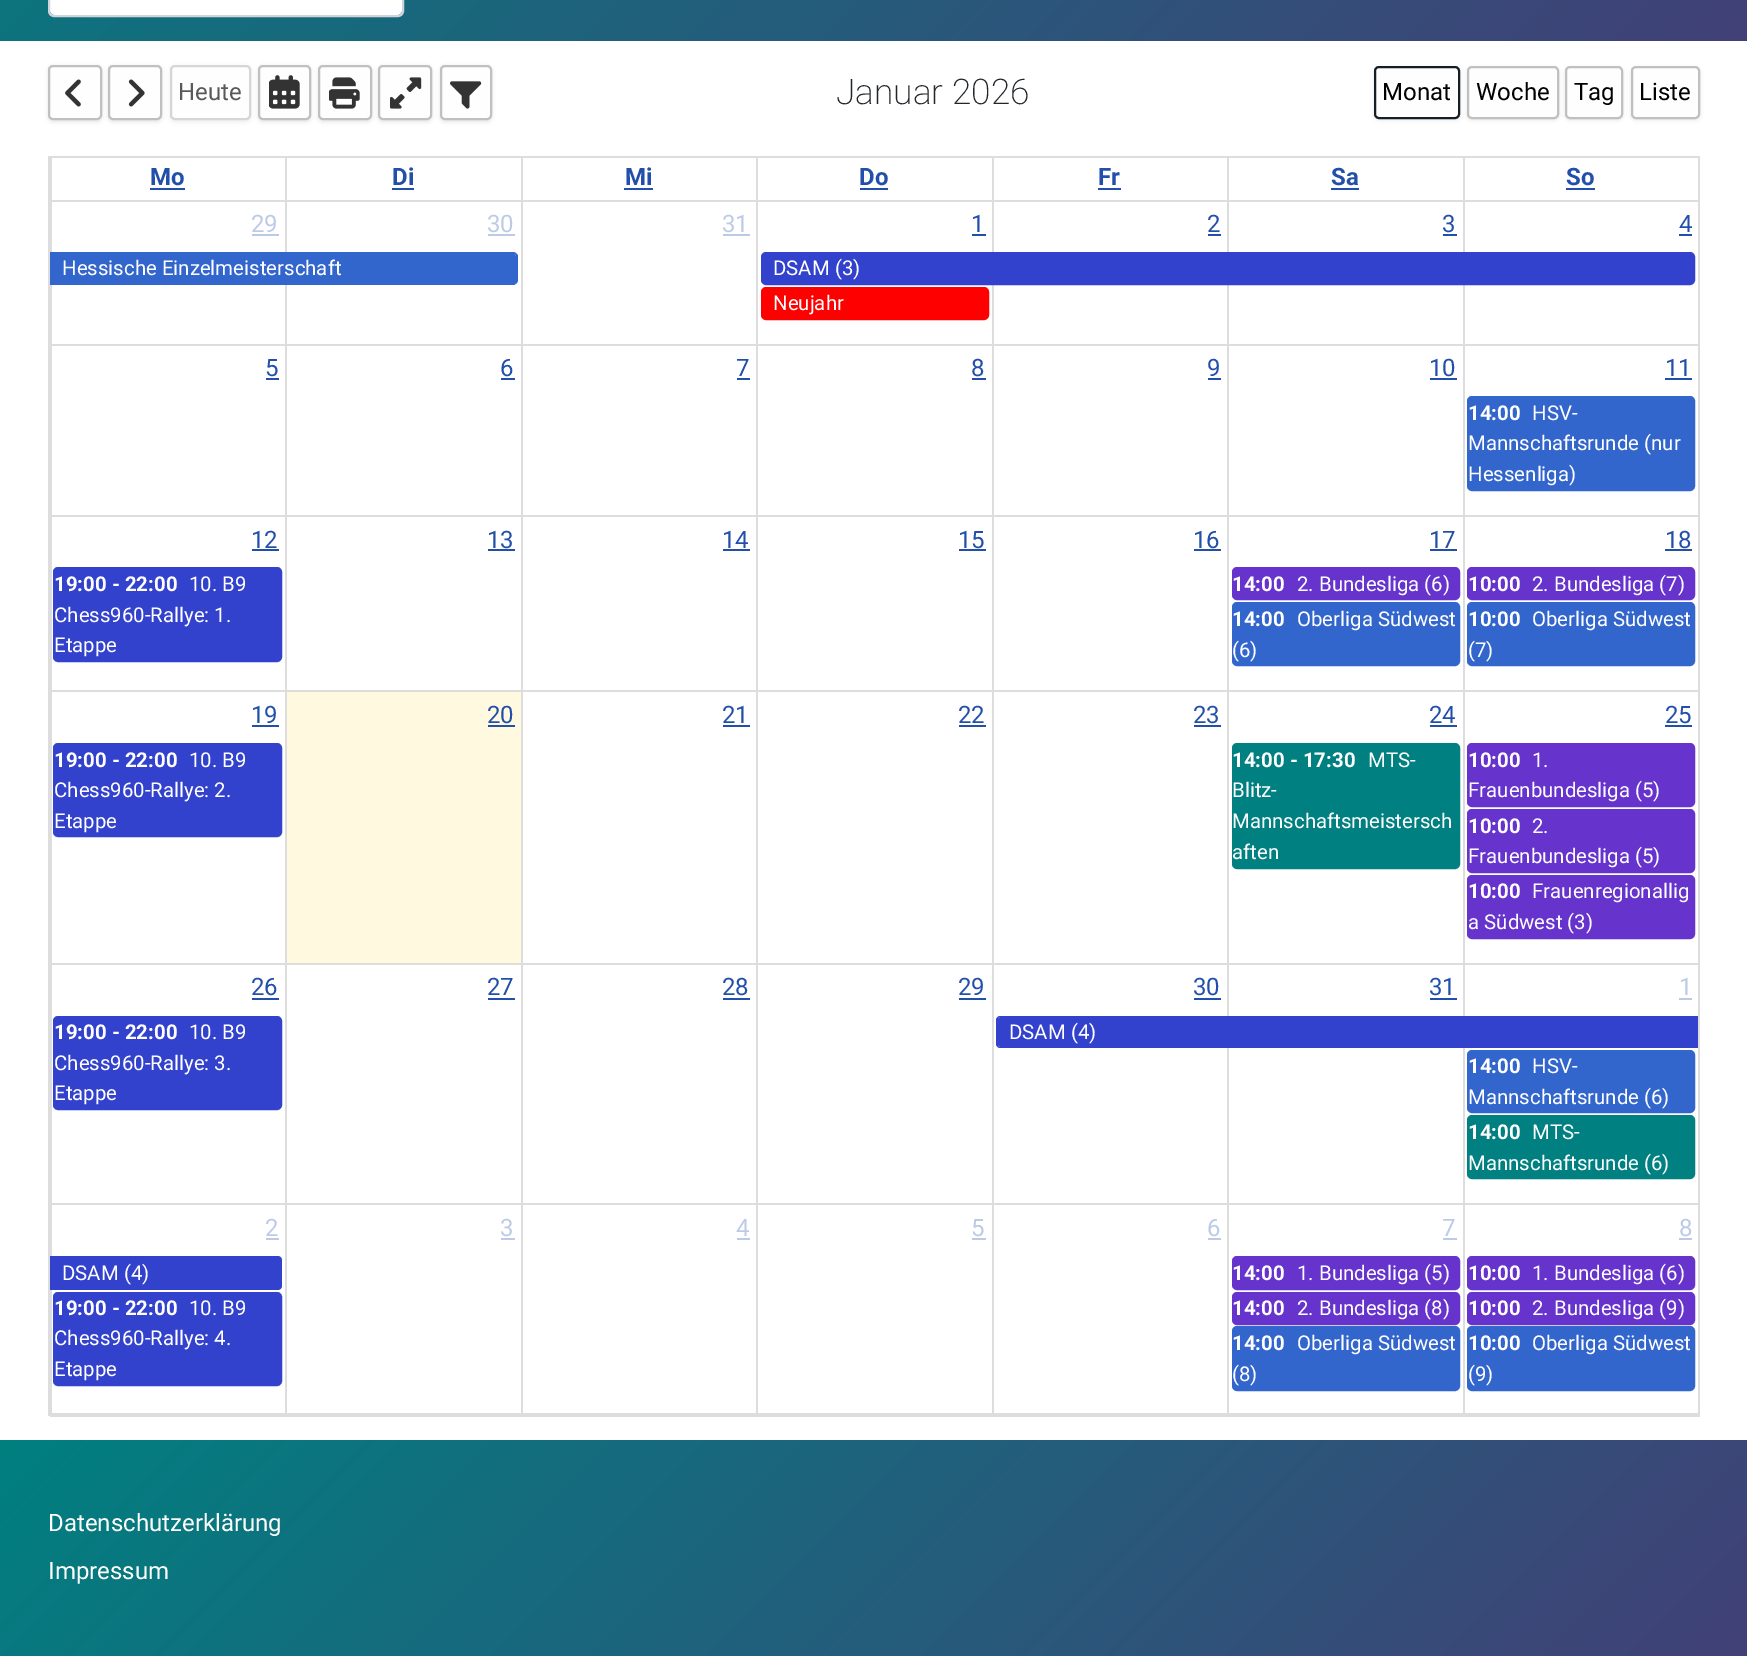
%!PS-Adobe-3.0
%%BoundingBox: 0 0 1747 1656
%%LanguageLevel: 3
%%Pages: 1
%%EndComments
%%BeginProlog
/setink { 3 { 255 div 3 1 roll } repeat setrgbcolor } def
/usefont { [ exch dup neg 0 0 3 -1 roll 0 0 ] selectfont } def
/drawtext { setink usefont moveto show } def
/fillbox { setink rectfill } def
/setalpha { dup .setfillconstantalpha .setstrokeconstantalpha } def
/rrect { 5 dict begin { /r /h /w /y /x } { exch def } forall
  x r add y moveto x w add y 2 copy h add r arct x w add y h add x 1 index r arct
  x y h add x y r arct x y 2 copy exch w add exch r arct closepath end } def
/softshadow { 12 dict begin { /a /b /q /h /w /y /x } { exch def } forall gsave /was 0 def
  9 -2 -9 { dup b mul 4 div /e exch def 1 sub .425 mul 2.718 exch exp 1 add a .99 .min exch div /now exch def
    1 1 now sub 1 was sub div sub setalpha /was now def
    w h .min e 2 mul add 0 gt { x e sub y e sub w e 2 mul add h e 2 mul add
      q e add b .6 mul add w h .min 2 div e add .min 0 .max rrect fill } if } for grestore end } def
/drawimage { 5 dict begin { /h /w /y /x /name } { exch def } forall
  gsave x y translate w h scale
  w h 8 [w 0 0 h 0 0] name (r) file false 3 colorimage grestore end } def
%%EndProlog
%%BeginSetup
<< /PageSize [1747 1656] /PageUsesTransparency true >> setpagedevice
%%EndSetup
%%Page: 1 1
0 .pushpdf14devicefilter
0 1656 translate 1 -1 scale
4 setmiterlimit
0 0 1747 1656 255 255 255 fillbox
gsave 0 0 moveto 1747 0 lineto 1747 41 lineto 0 41 lineto closepath clip newpath
<< /ShadingType 2 /ColorSpace /DeviceRGB /Coords [319 -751 1429 359] /Extend [true true] /Function << /FunctionType 2 /Domain [0 1] /C0 [0 0.502 0.502] /C1 [0.259 0.251 0.467] /N 1 >> >> shfill grestore
50 -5 352 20 5 rrect fill
206 212 218 setink
2 setlinewidth
49 -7 354 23 5 rrect stroke
0 0 0 setink
48 66 54 56 5 2 0.1 softshadow
254 254 254 setink
49 66 52 53 4 rrect gsave fill grestore
192 192 192 setink
stroke
(assets/img1.rgb) 65 79 16 28 drawimage
0 0 0 setink
108 66 54 56 5 2 0.1 softshadow
254 254 254 setink
109 66 52 53 4 rrect gsave fill grestore
192 192 192 setink
stroke
(assets/img2.rgb) 128 79 17 28 drawimage
89 89 89 setink
170 66 81 56 5 2 0.1 softshadow
254 254 254 setink
171 66 79 53 4 rrect gsave fill grestore
214 214 214 setink
stroke
(Heute) 178 100 /Roboto-Regular 24 89 89 89 drawtext
0 0 0 setink
258 66 53 56 5 2 0.1 softshadow
254 254 254 setink
259 66 51 53 4 rrect gsave fill grestore
192 192 192 setink
stroke
(assets/img3.rgb) 269 75 31 34 drawimage
0 0 0 setink
318 66 54 56 5 2 0.1 softshadow
254 254 254 setink
319 66 52 53 4 rrect gsave fill grestore
192 192 192 setink
stroke
(assets/img4.rgb) 329 77 31 32 drawimage
0 0 0 setink
378 66 54 56 5 2 0.1 softshadow
254 254 254 setink
379 66 52 53 4 rrect gsave fill grestore
192 192 192 setink
stroke
(assets/img5.rgb) 390 77 32 32 drawimage
0 0 0 setink
440 66 52 56 5 2 0.1 softshadow
254 254 254 setink
441 66 50 53 4 rrect gsave fill grestore
192 192 192 setink
stroke
(assets/img6.rgb) 450 81 32 28 drawimage
(Januar 2026) 836 104 /Roboto-ExtraLight 35.25 34 38 42 drawtext
0 0 0 setink
1374 68 86 52 5 2 0.1 softshadow
254 254 254 setink
1375 67 84 51 4 rrect gsave fill grestore
21 30 39 setink
stroke
(Monat) 1382 100 /Roboto-Regular 24 0 0 0 drawtext
1467 68 92 52 5 2 0.1 softshadow
254 254 254 setink
1468 67 90 51 4 rrect gsave fill grestore
192 192 192 setink
stroke
(Woche) 1476 100 /Roboto-Regular 24 0 0 0 drawtext
1565 68 58 52 5 2 0.1 softshadow
254 254 254 setink
1566 67 56 51 4 rrect gsave fill grestore
192 192 192 setink
stroke
(Tag) 1574 100 /Roboto-Regular 24 0 0 0 drawtext
1631 68 69 52 5 2 0.1 softshadow
254 254 254 setink
1632 67 67 51 4 rrect gsave fill grestore
192 192 192 setink
stroke
(Liste) 1639 100 /Roboto-Regular 24 0 0 0 drawtext
48 156 1652 2 221 221 221 fillbox
48 156 2 1260 221 221 221 fillbox
1698 158 2 43 221 221 221 fillbox
(Mo) 150 185 /Roboto-Bold 24 34 79 170 drawtext
150 188 35 2 34 79 170 fillbox
(Di) 392 185 /Roboto-Bold 24 34 79 170 drawtext
392 188 22 2 34 79 170 fillbox
(Mi) 625 185 /Roboto-Bold 24 34 79 170 drawtext
624 188 29 2 34 79 170 fillbox
(Do) 859 185 /Roboto-Bold 24 34 79 170 drawtext
860 188 28 2 34 79 170 fillbox
(Fr) 1098 185 /Roboto-Bold 24 34 79 170 drawtext
1098 188 23 2 34 79 170 fillbox
(Sa) 1331 185 /Roboto-Bold 24 34 79 170 drawtext
1331 188 28 2 34 79 170 fillbox
(So) 1566 185 /Roboto-Bold 24 34 79 170 drawtext
1566 188 29 2 34 79 170 fillbox
1698 201 2 1215 221 221 221 fillbox
50 1415 1650 2 221 221 221 fillbox
1463 200 235 2 221 221 221 fillbox
1463 344 235 2 221 221 221 fillbox
1463 515 235 2 221 221 221 fillbox
1463 690 235 2 221 221 221 fillbox
1463 963 235 2 221 221 221 fillbox
1463 1203 235 2 221 221 221 fillbox
1463 1413 235 2 221 221 221 fillbox
1463 1203 2 212 221 221 221 fillbox
1227 1203 237 2 221 221 221 fillbox
1463 963 2 242 221 221 221 fillbox
1227 963 237 2 221 221 221 fillbox
1463 690 2 275 221 221 221 fillbox
1227 690 237 2 221 221 221 fillbox
1463 515 2 177 221 221 221 fillbox
1227 515 237 2 221 221 221 fillbox
1463 344 2 172 221 221 221 fillbox
1227 344 237 2 221 221 221 fillbox
1463 158 2 187 221 221 221 fillbox
1227 200 237 2 221 221 221 fillbox
1227 1413 237 2 221 221 221 fillbox
1227 1203 2 212 221 221 221 fillbox
992 1203 237 2 221 221 221 fillbox
1227 963 2 242 221 221 221 fillbox
992 963 237 2 221 221 221 fillbox
1227 690 2 275 221 221 221 fillbox
992 690 237 2 221 221 221 fillbox
1227 515 2 177 221 221 221 fillbox
992 515 237 2 221 221 221 fillbox
1227 344 2 172 221 221 221 fillbox
992 344 237 2 221 221 221 fillbox
1227 158 2 187 221 221 221 fillbox
992 200 237 2 221 221 221 fillbox
992 1413 237 2 221 221 221 fillbox
992 1203 2 212 221 221 221 fillbox
756 1203 237 2 221 221 221 fillbox
992 963 2 242 221 221 221 fillbox
756 963 237 2 221 221 221 fillbox
992 690 2 275 221 221 221 fillbox
756 690 237 2 221 221 221 fillbox
992 515 2 177 221 221 221 fillbox
756 515 237 2 221 221 221 fillbox
992 344 2 172 221 221 221 fillbox
756 344 237 2 221 221 221 fillbox
992 158 2 187 221 221 221 fillbox
756 200 237 2 221 221 221 fillbox
756 1413 237 2 221 221 221 fillbox
756 1203 2 212 221 221 221 fillbox
521 1203 237 2 221 221 221 fillbox
756 963 2 242 221 221 221 fillbox
521 963 237 2 221 221 221 fillbox
756 690 2 275 221 221 221 fillbox
521 690 237 2 221 221 221 fillbox
756 515 2 177 221 221 221 fillbox
521 515 237 2 221 221 221 fillbox
756 344 2 172 221 221 221 fillbox
521 344 237 2 221 221 221 fillbox
756 158 2 187 221 221 221 fillbox
521 200 237 2 221 221 221 fillbox
521 1413 237 2 221 221 221 fillbox
521 1203 2 212 221 221 221 fillbox
285 1203 237 2 221 221 221 fillbox
521 963 2 242 221 221 221 fillbox
285 963 237 2 221 221 221 fillbox
521 690 2 275 221 221 221 fillbox
285 690 237 2 221 221 221 fillbox
521 515 2 177 221 221 221 fillbox
285 515 237 2 221 221 221 fillbox
521 344 2 172 221 221 221 fillbox
285 344 237 2 221 221 221 fillbox
521 158 2 187 221 221 221 fillbox
285 200 237 2 221 221 221 fillbox
285 1413 237 2 221 221 221 fillbox
285 1203 2 212 221 221 221 fillbox
50 1203 237 2 221 221 221 fillbox
285 963 2 242 221 221 221 fillbox
50 963 237 2 221 221 221 fillbox
285 690 2 275 221 221 221 fillbox
50 690 237 2 221 221 221 fillbox
285 515 2 177 221 221 221 fillbox
50 515 237 2 221 221 221 fillbox
285 344 2 172 221 221 221 fillbox
50 344 237 2 221 221 221 fillbox
285 158 2 187 221 221 221 fillbox
50 200 237 2 221 221 221 fillbox
50 1413 237 2 221 221 221 fillbox
50 1203 2 212 221 221 221 fillbox
50 963 2 242 221 221 221 fillbox
50 690 2 275 221 221 221 fillbox
50 515 2 177 221 221 221 fillbox
50 344 2 172 221 221 221 fillbox
50 158 2 187 221 221 221 fillbox
(29) 251 232 /Roboto-Regular 24 189 202 230 drawtext
252 234 27 2 189 202 230 fillbox
51 102 204 setink
50 254 moveto 513 254 lineto 514.5 254 516 255.5 516 257 curveto 516 281 lineto 516 282.5 514.5 284 513 284 curveto 50 284 lineto closepath fill
50 252 moveto 513 252 lineto 515 252 518 254 518 256 curveto 518 280 lineto 518 283 515 285 513 285 curveto 50 285 lineto closepath 50 254 moveto 513 254 lineto 515 254 516 255 516 256 curveto 516 280 lineto 516 282 515 284 513 284 curveto 50 284 lineto closepath eofill
(Hessische Einzelmeisterschaft) 62 275 /Roboto-Regular 20.4 255 255 255 drawtext
(30) 487 232 /Roboto-Regular 24 189 202 230 drawtext
488 234 27 2 189 202 230 fillbox
(31) 722 232 /Roboto-Regular 24 189 202 230 drawtext
723 234 27 2 189 202 230 fillbox
(1) 971 232 /Roboto-Regular 24 34 79 170 drawtext
972 234 14 2 34 79 170 fillbox
51 66 204 setink
762 253 932 31 4 rrect gsave fill grestore
stroke
(DSAM \(3\)) 773 275 /Roboto-Regular 20.4 255 255 255 drawtext
255 0 0 setink
762 288 226 31 4 rrect gsave fill grestore
stroke
(Neujahr) 773 310 /Roboto-Regular 20.4 255 255 255 drawtext
(2) 1207 232 /Roboto-Regular 24 34 79 170 drawtext
1208 234 13 2 34 79 170 fillbox
(3) 1442 232 /Roboto-Regular 24 34 79 170 drawtext
1443 234 14 2 34 79 170 fillbox
(4) 1679 232 /Roboto-Regular 24 34 79 170 drawtext
1679 234 13 2 34 79 170 fillbox
(5) 265 376 /Roboto-Regular 24 34 79 170 drawtext
266 378 13 2 34 79 170 fillbox
(6) 500 376 /Roboto-Regular 24 34 79 170 drawtext
501 378 14 2 34 79 170 fillbox
(7) 736 376 /Roboto-Regular 24 34 79 170 drawtext
737 378 13 2 34 79 170 fillbox
(8) 971 376 /Roboto-Regular 24 34 79 170 drawtext
972 378 14 2 34 79 170 fillbox
(9) 1207 376 /Roboto-Regular 24 34 79 170 drawtext
1208 378 13 2 34 79 170 fillbox
(10) 1429 376 /Roboto-Regular 24 34 79 170 drawtext
1430 378 27 2 34 79 170 fillbox
(11) 1665 376 /Roboto-Regular 24 34 79 170 drawtext
1665 378 27 2 34 79 170 fillbox
51 102 204 setink
1468 397 226 93 4 rrect gsave fill grestore
stroke
(14:00) 1468 420 /Roboto-Bold 20.4 255 255 255 drawtext
(HSV-) 1532 420 /Roboto-Regular 20.4 255 255 255 drawtext
(Mannschaftsrunde \(nur) 1468 450 /Roboto-Regular 20.4 255 255 255 drawtext
(Hessenliga\)) 1468 481 /Roboto-Regular 20.4 255 255 255 drawtext
(12) 251 548 /Roboto-Regular 24 34 79 170 drawtext
252 549 27 2 34 79 170 fillbox
51 66 204 setink
54 568 227 93 4 rrect gsave fill grestore
stroke
(19:00 - 22:00) 54 591 /Roboto-Bold 20.4 255 255 255 drawtext
(10. B9) 189 591 /Roboto-Regular 20.4 255 255 255 drawtext
(Chess960-Rallye: 1.) 54 622 /Roboto-Regular 20.4 255 255 255 drawtext
(Etappe) 54 652 /Roboto-Regular 20.4 255 255 255 drawtext
(13) 487 548 /Roboto-Regular 24 34 79 170 drawtext
488 549 27 2 34 79 170 fillbox
(14) 722 548 /Roboto-Regular 24 34 79 170 drawtext
723 549 27 2 34 79 170 fillbox
(15) 958 548 /Roboto-Regular 24 34 79 170 drawtext
959 549 27 2 34 79 170 fillbox
(16) 1193 548 /Roboto-Regular 24 34 79 170 drawtext
1194 549 27 2 34 79 170 fillbox
(17) 1429 548 /Roboto-Regular 24 34 79 170 drawtext
1430 549 27 2 34 79 170 fillbox
102 51 204 setink
1233 568 226 31 4 rrect gsave fill grestore
stroke
(14:00) 1232 591 /Roboto-Bold 20.4 255 255 255 drawtext
(2. Bundesliga \(6\)) 1297 591 /Roboto-Regular 20.4 255 255 255 drawtext
51 102 204 setink
1233 603 226 62 4 rrect gsave fill grestore
stroke
(14:00) 1232 626 /Roboto-Bold 20.4 255 255 255 drawtext
(Oberliga Südwest) 1297 626 /Roboto-Regular 20.4 255 255 255 drawtext
(\(6\)) 1232 657 /Roboto-Regular 20.4 255 255 255 drawtext
(18) 1665 548 /Roboto-Regular 24 34 79 170 drawtext
1665 549 27 2 34 79 170 fillbox
102 51 204 setink
1468 568 226 31 4 rrect gsave fill grestore
stroke
(10:00) 1468 591 /Roboto-Bold 20.4 255 255 255 drawtext
(2. Bundesliga \(7\)) 1532 591 /Roboto-Regular 20.4 255 255 255 drawtext
51 102 204 setink
1468 603 226 62 4 rrect gsave fill grestore
stroke
(10:00) 1468 626 /Roboto-Bold 20.4 255 255 255 drawtext
(Oberliga Südwest) 1532 626 /Roboto-Regular 20.4 255 255 255 drawtext
(\(7\)) 1468 657 /Roboto-Regular 20.4 255 255 255 drawtext
(19) 251 723 /Roboto-Regular 24 34 79 170 drawtext
252 725 27 2 34 79 170 fillbox
51 66 204 setink
54 744 227 92 4 rrect gsave fill grestore
stroke
(19:00 - 22:00) 54 767 /Roboto-Bold 20.4 255 255 255 drawtext
(10. B9) 189 767 /Roboto-Regular 20.4 255 255 255 drawtext
(Chess960-Rallye: 2.) 54 797 /Roboto-Regular 20.4 255 255 255 drawtext
(Etappe) 54 828 /Roboto-Regular 20.4 255 255 255 drawtext
287 692 234 271 255 250 223 fillbox
(20) 487 723 /Roboto-Regular 24 34 79 170 drawtext
488 725 27 2 34 79 170 fillbox
(21) 722 723 /Roboto-Regular 24 34 79 170 drawtext
723 725 27 2 34 79 170 fillbox
(22) 958 723 /Roboto-Regular 24 34 79 170 drawtext
959 725 27 2 34 79 170 fillbox
(23) 1193 723 /Roboto-Regular 24 34 79 170 drawtext
1194 725 27 2 34 79 170 fillbox
(24) 1429 723 /Roboto-Regular 24 34 79 170 drawtext
1430 725 27 2 34 79 170 fillbox
0 128 128 setink
1233 744 226 124 4 rrect gsave fill grestore
stroke
(14:00 - 17:30) 1232 767 /Roboto-Bold 20.4 255 255 255 drawtext
(MTS-) 1368 767 /Roboto-Regular 20.4 255 255 255 drawtext
(Blitz-) 1232 797 /Roboto-Regular 20.4 255 255 255 drawtext
(Mannschaftsmeistersch) 1232 828 /Roboto-Regular 20.4 255 255 255 drawtext
(aften) 1232 859 /Roboto-Regular 20.4 255 255 255 drawtext
(25) 1665 723 /Roboto-Regular 24 34 79 170 drawtext
1665 725 27 2 34 79 170 fillbox
102 51 204 setink
1468 744 226 62 4 rrect gsave fill grestore
stroke
(10:00) 1468 767 /Roboto-Bold 20.4 255 255 255 drawtext
(1.) 1532 767 /Roboto-Regular 20.4 255 255 255 drawtext
(Frauenbundesliga \(5\)) 1468 797 /Roboto-Regular 20.4 255 255 255 drawtext
102 51 204 setink
1468 810 226 62 4 rrect gsave fill grestore
stroke
(10:00) 1468 833 /Roboto-Bold 20.4 255 255 255 drawtext
(2.) 1532 833 /Roboto-Regular 20.4 255 255 255 drawtext
(Frauenbundesliga \(5\)) 1468 863 /Roboto-Regular 20.4 255 255 255 drawtext
102 51 204 setink
1468 876 226 62 4 rrect gsave fill grestore
stroke
(10:00) 1468 898 /Roboto-Bold 20.4 255 255 255 drawtext
(Frauenregionallig) 1532 898 /Roboto-Regular 20.4 255 255 255 drawtext
(a Südwest \(3\)) 1468 929 /Roboto-Regular 20.4 255 255 255 drawtext
(26) 251 995 /Roboto-Regular 24 34 79 170 drawtext
252 998 27 2 34 79 170 fillbox
51 66 204 setink
54 1017 227 92 4 rrect gsave fill grestore
stroke
(19:00 - 22:00) 54 1039 /Roboto-Bold 20.4 255 255 255 drawtext
(10. B9) 189 1039 /Roboto-Regular 20.4 255 255 255 drawtext
(Chess960-Rallye: 3.) 54 1070 /Roboto-Regular 20.4 255 255 255 drawtext
(Etappe) 54 1100 /Roboto-Regular 20.4 255 255 255 drawtext
(27) 487 995 /Roboto-Regular 24 34 79 170 drawtext
488 998 27 2 34 79 170 fillbox
(28) 722 995 /Roboto-Regular 24 34 79 170 drawtext
723 998 27 2 34 79 170 fillbox
(29) 958 995 /Roboto-Regular 24 34 79 170 drawtext
959 998 27 2 34 79 170 fillbox
(30) 1193 995 /Roboto-Regular 24 34 79 170 drawtext
1194 998 27 2 34 79 170 fillbox
51 66 204 setink
1001 1017 moveto 1698 1017 lineto 1698 1047 lineto 1001 1047 lineto 999.5 1047 998 1045.5 998 1044 curveto 998 1020 lineto 998 1018.5 999.5 1017 1001 1017 curveto closepath fill
1000 1016 moveto 1698 1016 lineto 1698 1048 lineto 1000 1048 lineto 998 1048 996 1046 996 1044 curveto 996 1020 lineto 996 1018 998 1016 1000 1016 curveto closepath 1000 1017 moveto 1698 1017 lineto 1698 1047 lineto 1000 1047 lineto 999 1047 998 1046 998 1044 curveto 998 1020 lineto 998 1018 999 1017 1000 1017 curveto closepath eofill
(DSAM \(4\)) 1009 1039 /Roboto-Regular 20.4 255 255 255 drawtext
(31) 1429 995 /Roboto-Regular 24 34 79 170 drawtext
1430 998 27 2 34 79 170 fillbox
(1) 1679 995 /Roboto-Regular 24 189 202 230 drawtext
1679 998 13 2 189 202 230 fillbox
51 102 204 setink
1468 1051 226 61 4 rrect gsave fill grestore
stroke
(14:00) 1468 1073 /Roboto-Bold 20.4 255 255 255 drawtext
(HSV-) 1532 1073 /Roboto-Regular 20.4 255 255 255 drawtext
(Mannschaftsrunde \(6\)) 1468 1104 /Roboto-Regular 20.4 255 255 255 drawtext
0 128 128 setink
1468 1116 226 62 4 rrect gsave fill grestore
stroke
(14:00) 1468 1139 /Roboto-Bold 20.4 255 255 255 drawtext
(MTS-) 1532 1139 /Roboto-Regular 20.4 255 255 255 drawtext
(Mannschaftsrunde \(6\)) 1468 1170 /Roboto-Regular 20.4 255 255 255 drawtext
(2) 265 1236 /Roboto-Regular 24 189 202 230 drawtext
266 1238 13 2 189 202 230 fillbox
51 66 204 setink
50 1257 moveto 278 1257 lineto 279.5 1257 281 1258.5 281 1260 curveto 281 1286 lineto 281 1287.5 279.5 1289 278 1289 curveto 50 1289 lineto closepath fill
50 1256 moveto 278 1256 lineto 280 1256 282 1258 282 1260 curveto 282 1286 lineto 282 1288 280 1290 278 1290 curveto 50 1290 lineto closepath 50 1257 moveto 278 1257 lineto 279 1257 280 1258 280 1260 curveto 280 1286 lineto 280 1287 279 1288 278 1288 curveto 50 1288 lineto closepath eofill
(DSAM \(4\)) 62 1280 /Roboto-Regular 20.4 255 255 255 drawtext
51 66 204 setink
54 1293 227 92 4 rrect gsave fill grestore
stroke
(19:00 - 22:00) 54 1315 /Roboto-Bold 20.4 255 255 255 drawtext
(10. B9) 189 1315 /Roboto-Regular 20.4 255 255 255 drawtext
(Chess960-Rallye: 4.) 54 1345 /Roboto-Regular 20.4 255 255 255 drawtext
(Etappe) 54 1376 /Roboto-Regular 20.4 255 255 255 drawtext
(3) 500 1236 /Roboto-Regular 24 189 202 230 drawtext
501 1238 14 2 189 202 230 fillbox
(4) 736 1236 /Roboto-Regular 24 189 202 230 drawtext
737 1238 13 2 189 202 230 fillbox
(5) 971 1236 /Roboto-Regular 24 189 202 230 drawtext
972 1238 14 2 189 202 230 fillbox
(6) 1207 1236 /Roboto-Regular 24 189 202 230 drawtext
1208 1238 13 2 189 202 230 fillbox
(7) 1442 1236 /Roboto-Regular 24 189 202 230 drawtext
1443 1238 14 2 189 202 230 fillbox
102 51 204 setink
1233 1257 226 32 4 rrect gsave fill grestore
stroke
(14:00) 1232 1280 /Roboto-Bold 20.4 255 255 255 drawtext
(1. Bundesliga \(5\)) 1297 1280 /Roboto-Regular 20.4 255 255 255 drawtext
102 51 204 setink
1233 1293 226 31 4 rrect gsave fill grestore
stroke
(14:00) 1232 1315 /Roboto-Bold 20.4 255 255 255 drawtext
(2. Bundesliga \(8\)) 1297 1315 /Roboto-Regular 20.4 255 255 255 drawtext
51 102 204 setink
1233 1327 226 63 4 rrect gsave fill grestore
stroke
(14:00) 1232 1350 /Roboto-Bold 20.4 255 255 255 drawtext
(Oberliga Südwest) 1297 1350 /Roboto-Regular 20.4 255 255 255 drawtext
(\(8\)) 1232 1381 /Roboto-Regular 20.4 255 255 255 drawtext
(8) 1679 1236 /Roboto-Regular 24 189 202 230 drawtext
1679 1238 13 2 189 202 230 fillbox
102 51 204 setink
1468 1257 226 32 4 rrect gsave fill grestore
stroke
(10:00) 1468 1280 /Roboto-Bold 20.4 255 255 255 drawtext
(1. Bundesliga \(6\)) 1532 1280 /Roboto-Regular 20.4 255 255 255 drawtext
102 51 204 setink
1468 1293 226 31 4 rrect gsave fill grestore
stroke
(10:00) 1468 1315 /Roboto-Bold 20.4 255 255 255 drawtext
(2. Bundesliga \(9\)) 1532 1315 /Roboto-Regular 20.4 255 255 255 drawtext
51 102 204 setink
1468 1327 226 63 4 rrect gsave fill grestore
stroke
(10:00) 1468 1350 /Roboto-Bold 20.4 255 255 255 drawtext
(Oberliga Südwest) 1532 1350 /Roboto-Regular 20.4 255 255 255 drawtext
(\(9\)) 1468 1381 /Roboto-Regular 20.4 255 255 255 drawtext
gsave 0 1440 moveto 1747 1440 lineto 1747 1656 lineto 0 1656 lineto closepath clip newpath
<< /ShadingType 2 /ColorSpace /DeviceRGB /Coords [383 1057 1365 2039] /Extend [true true] /Function << /FunctionType 2 /Domain [0 1] /C0 [0 0.502 0.502] /C1 [0.259 0.251 0.467] /N 1 >> >> shfill grestore
(Datenschutzerklärung) 48 1531 /Roboto-Regular 24 255 255 255 drawtext
(Impressum) 48 1579 /Roboto-Regular 24 255 255 255 drawtext
.poppdf14devicefilter showpage
%%EOF
